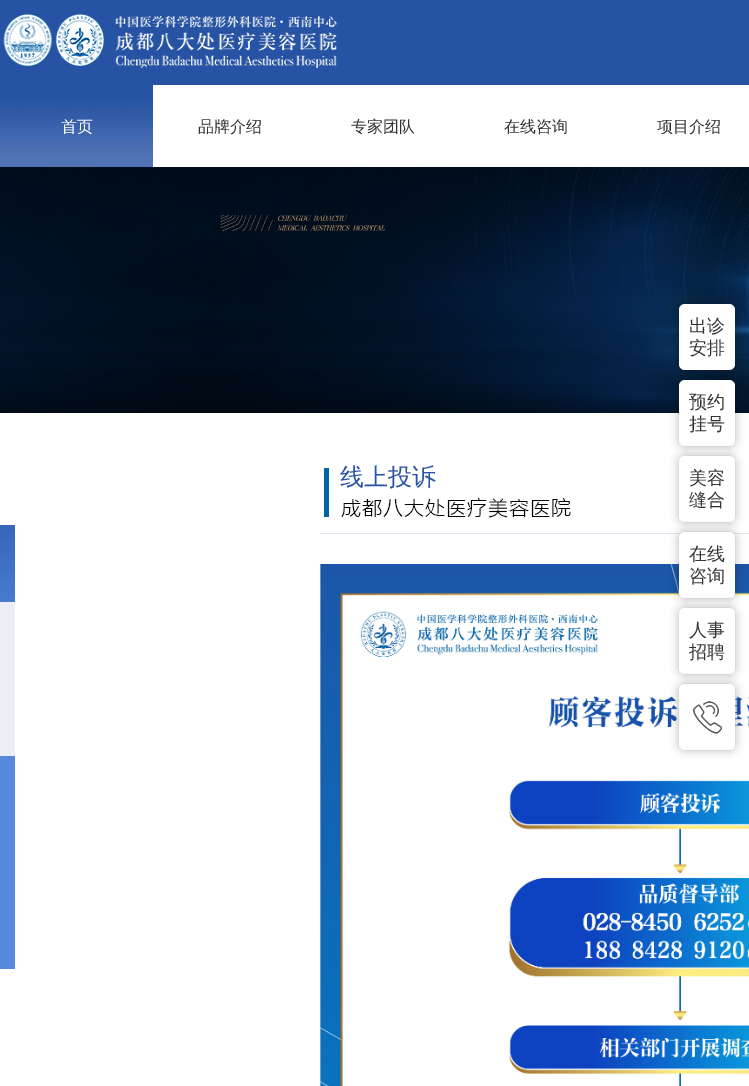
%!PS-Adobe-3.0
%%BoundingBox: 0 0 749 1086
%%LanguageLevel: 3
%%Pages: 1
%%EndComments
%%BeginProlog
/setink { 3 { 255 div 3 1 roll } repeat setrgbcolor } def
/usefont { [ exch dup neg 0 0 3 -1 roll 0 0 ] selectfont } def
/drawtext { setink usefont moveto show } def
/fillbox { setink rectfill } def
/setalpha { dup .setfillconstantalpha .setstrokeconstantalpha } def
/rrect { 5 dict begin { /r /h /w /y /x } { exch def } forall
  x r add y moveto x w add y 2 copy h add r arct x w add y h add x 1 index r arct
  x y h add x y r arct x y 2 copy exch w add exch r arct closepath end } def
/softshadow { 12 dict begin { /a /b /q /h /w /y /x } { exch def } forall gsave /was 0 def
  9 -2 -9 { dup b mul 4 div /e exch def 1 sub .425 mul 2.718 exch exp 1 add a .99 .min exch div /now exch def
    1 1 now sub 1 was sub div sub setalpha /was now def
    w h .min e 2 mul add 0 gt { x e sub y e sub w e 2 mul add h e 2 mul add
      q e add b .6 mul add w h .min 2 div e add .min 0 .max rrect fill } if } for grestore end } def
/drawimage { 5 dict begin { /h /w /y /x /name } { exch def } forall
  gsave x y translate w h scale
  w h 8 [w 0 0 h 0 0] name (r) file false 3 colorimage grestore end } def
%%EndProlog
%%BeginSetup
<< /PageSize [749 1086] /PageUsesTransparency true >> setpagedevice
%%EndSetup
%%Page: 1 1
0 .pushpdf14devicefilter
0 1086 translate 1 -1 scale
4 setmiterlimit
0 0 749 1086 255 255 255 fillbox
0 0 749 85 38 83 164 fillbox
(assets/img1.rgb) 3 14 334 54 drawimage
(assets/img2.rgb) 0 85 153 82 drawimage
(首页) 61 132 /WenQuanYiZenHei-Medium 16 255 255 255 drawtext
(品牌介绍) 198 132 /WenQuanYiZenHei-Medium 16 51 51 51 drawtext
(专家团队) 351 132 /WenQuanYiZenHei-Medium 16 51 51 51 drawtext
(在线咨询) 504 132 /WenQuanYiZenHei-Medium 16 51 51 51 drawtext
(项目介绍) 657 132 /WenQuanYiZenHei-Medium 16 51 51 51 drawtext
(assets/img3.rgb) 0 167 749 246 drawimage
320 533 429 1 222 230 241 fillbox
(assets/img4.rgb) 324 468 247 50 drawimage
(线上投诉) 340 485 /WenQuanYiZenHei-Medium 24 38 83 164 drawtext
(assets/img5.rgb) 320 564 429 202 drawimage
(assets/img6.rgb) 320 766 429 320 drawimage
0 756 15 213 88 137 220 fillbox
(assets/img7.rgb) 0 525 15 77 drawimage
0 602 15 154 235 239 245 fillbox
0 0 0 setink
679 304 56 66 6 5 0.3 softshadow
255 255 255 setink
679 304 56 66 6 rrect fill
(出诊) 689 332 /WenQuanYiZenHei-Medium 18 51 51 51 drawtext
(安排) 689 354 /WenQuanYiZenHei-Medium 18 51 51 51 drawtext
0 0 0 setink
679 380 56 66 6 5 0.3 softshadow
255 255 255 setink
679 380 56 66 6 rrect fill
(预约) 689 408 /WenQuanYiZenHei-Medium 18 51 51 51 drawtext
(挂号) 689 430 /WenQuanYiZenHei-Medium 18 51 51 51 drawtext
0 0 0 setink
679 456 56 66 6 5 0.3 softshadow
255 255 255 setink
679 456 56 66 6 rrect fill
(美容) 689 484 /WenQuanYiZenHei-Medium 18 51 51 51 drawtext
(缝合) 689 506 /WenQuanYiZenHei-Medium 18 51 51 51 drawtext
0 0 0 setink
679 532 56 66 6 5 0.3 softshadow
255 255 255 setink
679 532 56 66 6 rrect fill
(在线) 689 560 /WenQuanYiZenHei-Medium 18 51 51 51 drawtext
(咨询) 689 582 /WenQuanYiZenHei-Medium 18 51 51 51 drawtext
0 0 0 setink
679 608 56 66 6 5 0.3 softshadow
255 255 255 setink
679 608 56 66 6 rrect fill
(人事) 689 636 /WenQuanYiZenHei-Medium 18 51 51 51 drawtext
(招聘) 689 658 /WenQuanYiZenHei-Medium 18 51 51 51 drawtext
0 0 0 setink
679 684 56 66 6 5 0.3 softshadow
255 255 255 setink
679 684 56 66 6 rrect fill
(assets/img8.rgb) 693 701 29 33 drawimage
.poppdf14devicefilter showpage
%%EOF
